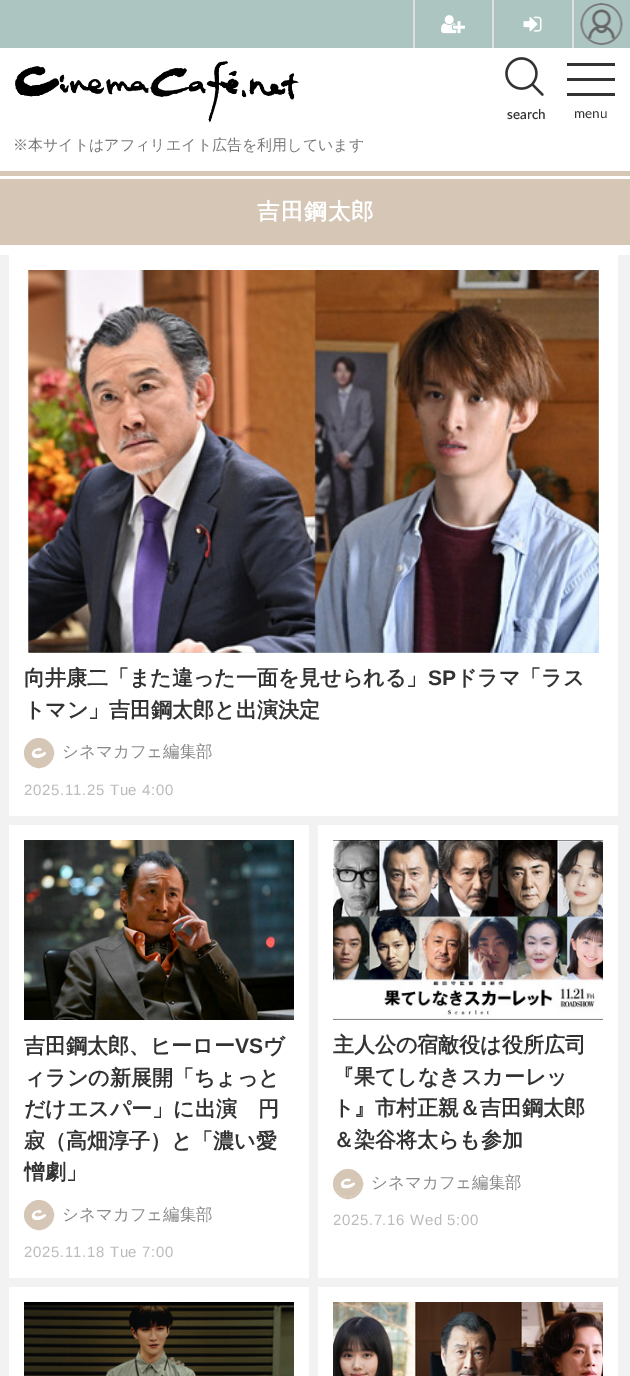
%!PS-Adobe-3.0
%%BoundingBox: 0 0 630 1376
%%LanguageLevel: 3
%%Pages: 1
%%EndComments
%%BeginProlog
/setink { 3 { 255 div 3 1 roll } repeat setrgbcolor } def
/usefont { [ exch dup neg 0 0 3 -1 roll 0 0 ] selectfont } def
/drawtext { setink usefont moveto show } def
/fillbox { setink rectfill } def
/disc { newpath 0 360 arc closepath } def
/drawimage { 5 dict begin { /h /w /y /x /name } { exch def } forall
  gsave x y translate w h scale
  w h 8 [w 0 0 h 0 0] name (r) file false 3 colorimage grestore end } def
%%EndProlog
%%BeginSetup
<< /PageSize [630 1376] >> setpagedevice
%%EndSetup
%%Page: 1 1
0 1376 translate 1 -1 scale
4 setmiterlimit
0 0 630 1376 255 255 255 fillbox
0 0 630 48 172 197 193 fillbox
413 0 2 48 223 223 223 fillbox
(assets/img1.rgb) 441 15 24 19 drawimage
572 0 2 48 223 223 223 fillbox
492 0 2 48 223 223 223 fillbox
(assets/img2.rgb) 523 16 19 16 drawimage
(assets/img3.rgb) 580 3 43 42 drawimage
(assets/img4.rgb) 15 61 284 61 drawimage
(assets/img5.rgb) 505 57 39 39 drawimage
(search) 507 119 /Lato-SemiBold 13.5 51 51 51 drawtext
567 63 48 3 51 51 51 fillbox
567 78 48 3 51 51 51 fillbox
567 93 48 3 51 51 51 fillbox
(menu) 574 118 /Lato-Regular 13.5 51 51 51 drawtext
(※本サイトはアフィリエイト広告を利用しています) 13 150 /WenQuanYiZenHei-Medium 15 119 119 119 drawtext
0 171 630 74 213 198 182 fillbox
0 176 630 3 255 255 255 fillbox
/WenQuanYiZenHei-Bold 22.5 usefont
257 219 moveto 1 0 (吉田鋼太郎) ashow
0 255 630 1121 242 242 242 fillbox
9 255 609 561 255 255 255 fillbox
29 270 570 383 197 220 218 fillbox
(assets/img6.rgb) 28 270 571 383 drawimage
(assets/img7.rgb) 28 270 571 383 drawimage
(向井康二「また違った一面を見せられる」) 24 685 /WenQuanYiZenHei-Bold 21 51 51 51 drawtext
(SP) 428 685 /LiberationSans-Bold 21 51 51 51 drawtext
(ドラマ「ラス) 456 685 /WenQuanYiZenHei-Bold 21 51 51 51 drawtext
(トマン」吉田鋼太郎と出演決定) 24 717 /WenQuanYiZenHei-Bold 21 51 51 51 drawtext
213 198 182 setink
2 setlinewidth
39 753 14 disc stroke
(assets/img8.rgb) 26 740 26 26 drawimage
(シネマカフェ編集部) 62 757 /WenQuanYiZenHei-Medium 16.5 136 136 136 drawtext
/LiberationSans-Regular 15 usefont
187 187 187 setink
24 795 moveto 0.6 0 (2025.11.25 Tue 4:00) ashow
9 825 300 453 255 255 255 fillbox
(assets/img9.rgb) 24 840 270 180 drawimage
(吉田鋼太郎、ヒーロー) 24 1053 /WenQuanYiZenHei-Bold 21 51 51 51 drawtext
(VS) 235 1053 /LiberationSans-Bold 21 51 51 51 drawtext
(ヴ) 263 1053 /WenQuanYiZenHei-Bold 21 51 51 51 drawtext
(ィランの新展開「ちょっと) 24 1085 /WenQuanYiZenHei-Bold 21 51 51 51 drawtext
(だけエスパー」に出演　円) 24 1116 /WenQuanYiZenHei-Bold 21 51 51 51 drawtext
(寂（高畑淳子）と「濃い愛) 24 1148 /WenQuanYiZenHei-Bold 21 51 51 51 drawtext
(憎劇」) 24 1179 /WenQuanYiZenHei-Bold 21 51 51 51 drawtext
213 198 182 setink
39 1215 14 disc stroke
(assets/img10.rgb) 26 1202 26 26 drawimage
(シネマカフェ編集部) 62 1220 /WenQuanYiZenHei-Medium 16.5 136 136 136 drawtext
/LiberationSans-Regular 15 usefont
187 187 187 setink
24 1257 moveto 0.6 0 (2025.11.18 Tue 7:00) ashow
318 825 300 453 255 255 255 fillbox
(assets/img11.rgb) 333 840 270 180 drawimage
(主人公の宿敵役は役所広司) 333 1052 /WenQuanYiZenHei-Bold 21 51 51 51 drawtext
(『果てしなきスカーレッ) 333 1084 /WenQuanYiZenHei-Bold 21 51 51 51 drawtext
(ト』市村正親＆吉田鋼太郎) 333 1115 /WenQuanYiZenHei-Bold 21 51 51 51 drawtext
(＆染谷将太らも参加) 333 1147 /WenQuanYiZenHei-Bold 21 51 51 51 drawtext
213 198 182 setink
348 1184 14 disc stroke
(assets/img12.rgb) 335 1171 26 26 drawimage
(シネマカフェ編集部) 371 1188 /WenQuanYiZenHei-Medium 16.5 136 136 136 drawtext
/LiberationSans-Regular 15 usefont
187 187 187 setink
333 1225 moveto 0.6 0 (2025.7.16 Wed 5:00) ashow
9 1287 300 89 255 255 255 fillbox
(assets/img13.rgb) 24 1302 270 74 drawimage
318 1287 300 89 255 255 255 fillbox
(assets/img14.rgb) 333 1302 270 74 drawimage
showpage
%%EOF
